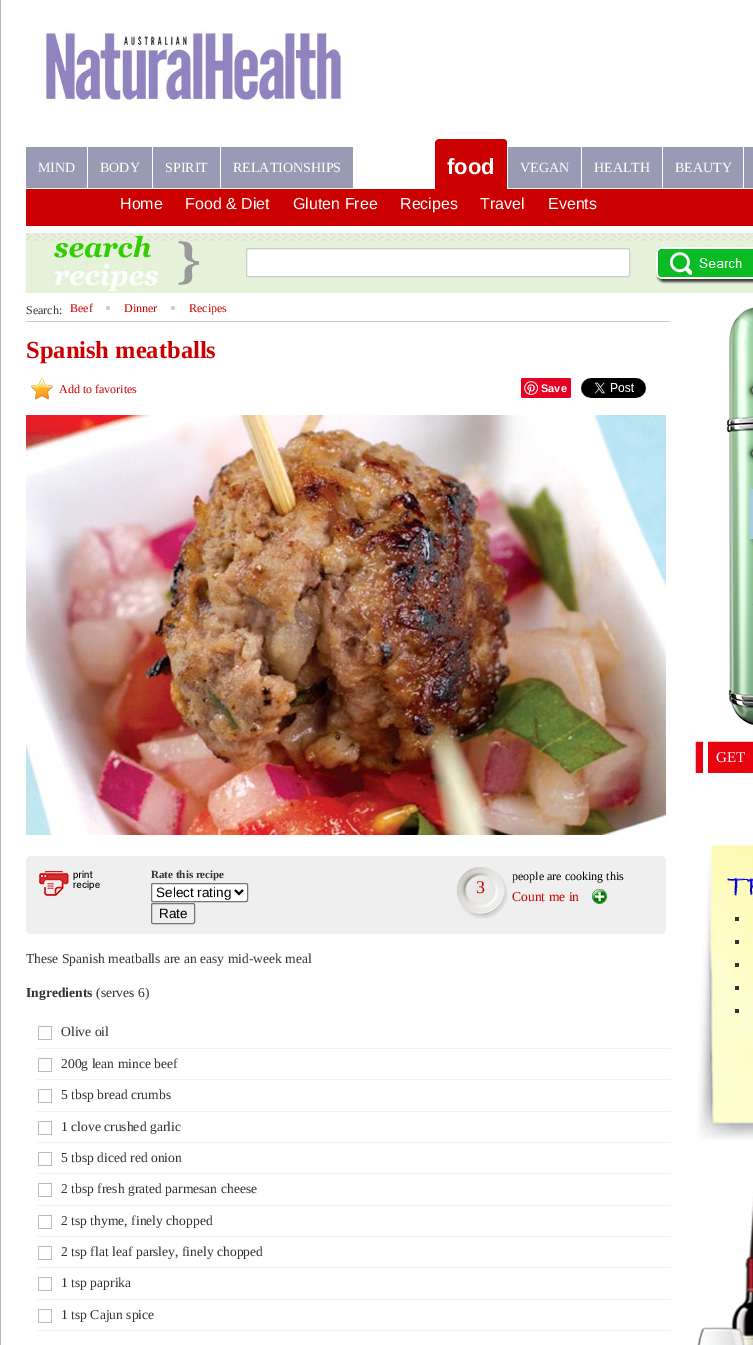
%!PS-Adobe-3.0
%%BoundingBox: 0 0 753 1345
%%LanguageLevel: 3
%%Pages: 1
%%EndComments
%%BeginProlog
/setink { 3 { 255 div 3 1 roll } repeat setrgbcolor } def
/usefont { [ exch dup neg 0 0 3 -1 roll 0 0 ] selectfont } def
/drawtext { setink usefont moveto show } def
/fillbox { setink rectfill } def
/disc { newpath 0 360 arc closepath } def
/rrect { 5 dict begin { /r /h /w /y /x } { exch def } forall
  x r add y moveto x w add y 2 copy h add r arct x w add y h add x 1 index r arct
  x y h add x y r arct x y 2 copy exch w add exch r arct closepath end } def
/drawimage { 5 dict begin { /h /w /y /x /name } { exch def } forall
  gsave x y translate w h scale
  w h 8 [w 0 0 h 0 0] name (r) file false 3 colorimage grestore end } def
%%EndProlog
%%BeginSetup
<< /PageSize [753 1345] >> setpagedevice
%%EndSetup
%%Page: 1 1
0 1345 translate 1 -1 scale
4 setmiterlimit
0 0 753 1345 255 255 255 fillbox
0 0 1 1345 191 175 198 fillbox
(assets/img1.rgb) 44 30 300 72 drawimage
26 147 61 41 153 154 180 fillbox
(MIND) 38 172 /LiberationSerif-Regular 14 255 255 255 drawtext
88 147 64 41 153 154 180 fillbox
(BODY) 100 172 /LiberationSerif-Regular 14 255 255 255 drawtext
153 147 67 41 153 154 180 fillbox
(SPIRIT) 165 172 /LiberationSerif-Regular 14 255 255 255 drawtext
221 147 132 41 153 154 180 fillbox
(RELATIONSHIPS) 233 172 /LiberationSerif-Regular 14 255 255 255 drawtext
153 154 180 setink
440 139 moveto 503 139 lineto 506 139 508 141 508 144 curveto 508 189 lineto 435 189 lineto 435 144 lineto 435 141 437 139 440 139 curveto closepath fill
507 142 1 47 255 255 255 fillbox
204 0 0 setink
440 139 moveto 437 139 435 141 435 144 curveto 435 189 lineto 507 189 lineto 507 144 lineto 507 141 505 139 503 139 curveto closepath fill
(food) 447 174 /LiberationSans-Bold 22 255 255 255 drawtext
508 147 73 41 153 154 180 fillbox
(VEGAN) 520 172 /LiberationSerif-Regular 14 255 255 255 drawtext
582 147 80 41 153 154 180 fillbox
(HEALTH) 594 172 /LiberationSerif-Regular 14 255 255 255 drawtext
663 147 80 41 153 154 180 fillbox
(BEAUTY) 675 172 /LiberationSerif-Regular 14 255 255 255 drawtext
744 147 9 41 153 154 180 fillbox
26 189 727 37 204 0 0 fillbox
(Home) 120 209 /LiberationSans-Regular 16 255 255 255 drawtext
(Food & Diet) 185 209 /LiberationSans-Regular 16 255 255 255 drawtext
(Gluten Free) 293 209 /LiberationSans-Regular 16 255 255 255 drawtext
(Recipes) 400 209 /LiberationSans-Regular 16 255 255 255 drawtext
(Travel) 480 209 /LiberationSans-Regular 16 255 255 255 drawtext
(Events) 548 209 /LiberationSans-Regular 16 255 255 255 drawtext
(assets/img2.rgb) 26 233 727 60 drawimage
246.5 248.5 383 28 1.5 rrect gsave fill grestore
204 204 204 setink
stroke
(assets/img3.rgb) 656 247 97 37 drawimage
26 321 644 1 204 204 204 fillbox
(Search:) 26 314 /LiberationSerif-Regular 12 51 51 51 drawtext
(Beef) 70 312 /LiberationSerif-Regular 12 204 0 0 drawtext
204 204 204 setink
108 308 2 disc fill
(Dinner) 124 312 /LiberationSerif-Regular 12 204 0 0 drawtext
204 204 204 setink
173 308 2 disc fill
(Recipes) 189 312 /LiberationSerif-Regular 12 204 0 0 drawtext
(Spanish meatballs) 26 358 /LiberationSerif-Bold 24.5 204 0 0 drawtext
(assets/img4.rgb) 31 378 22 22 drawimage
(Add to favorites) 59 393 /LiberationSerif-Regular 12 204 0 0 drawtext
230 0 35 setink
521 378 50 20 2 rrect fill
(assets/img5.rgb) 524 381 14 14 drawimage
(Save) 541 392 /LiberationSans-Bold 11 255 255 255 drawtext
(assets/img6.rgb) 581 378 65 20 drawimage
(assets/img7.rgb) 26 415 640 420 drawimage
239 239 239 setink
26 856 640 78 5 rrect fill
(assets/img8.rgb) 39 870 61 26 drawimage
(Rate this recipe) 151 878 /LiberationSerif-Bold 11 51 51 51 drawtext
255 255 255 setink
151.5 883.5 96 18 1.5 rrect gsave fill grestore
118 118 118 setink
stroke
0 0 0 setink
2 setlinewidth
235 890 moveto 239 894 lineto 243 890 lineto stroke
(Select rating) 156 897 /LiberationSans-Regular 13.5 0 0 0 drawtext
118 118 118 setink
1 setlinewidth
151.5 903.5 43 20 1.5 rrect stroke
(Rate) 159 918 /LiberationSans-Regular 13.5 0 0 0 drawtext
(assets/img9.rgb) 456 867 52 52 drawimage
(people are cooking this) 512 880 /LiberationSerif-Regular 12 0 0 0 drawtext
(3) 476 893 /LiberationSerif-Regular 18 204 0 0 drawtext
(Count me in) 512 901 /LiberationSerif-Regular 13.6 204 0 0 drawtext
(assets/img10.rgb) 592 889 15 15 drawimage
(These Spanish meatballs are an easy mid-week meal) 26 963 /LiberationSerif-Regular 13.6 51 51 51 drawtext
(Ingredients) 26 997 /LiberationSerif-Bold 13.6 51 51 51 drawtext
(\(serves 6\)) 96 997 /LiberationSerif-Regular 13.6 51 51 51 drawtext
(assets/img11.rgb) 36 1024 16 16 drawimage
36 1048 635 1 242 242 242 fillbox
(Olive oil) 61 1036 /LiberationSerif-Regular 13.6 51 51 51 drawtext
(assets/img11.rgb) 36 1056 16 16 drawimage
36 1079 635 1 242 242 242 fillbox
(200g lean mince beef) 61 1068 /LiberationSerif-Regular 13.6 51 51 51 drawtext
(assets/img11.rgb) 36 1087 16 16 drawimage
36 1111 635 1 242 242 242 fillbox
(5 tbsp bread crumbs) 61 1099 /LiberationSerif-Regular 13.6 51 51 51 drawtext
(assets/img11.rgb) 36 1119 16 16 drawimage
36 1142 635 1 242 242 242 fillbox
(1 clove crushed garlic) 61 1131 /LiberationSerif-Regular 13.6 51 51 51 drawtext
(assets/img11.rgb) 36 1150 16 16 drawimage
36 1173 635 1 242 242 242 fillbox
(5 tbsp diced red onion) 61 1162 /LiberationSerif-Regular 13.6 51 51 51 drawtext
(assets/img11.rgb) 36 1181 16 16 drawimage
36 1205 635 1 242 242 242 fillbox
(2 tbsp fresh grated parmesan cheese) 61 1193 /LiberationSerif-Regular 13.6 51 51 51 drawtext
(assets/img11.rgb) 36 1213 16 16 drawimage
36 1236 635 1 242 242 242 fillbox
(2 tsp thyme, finely chopped) 61 1225 /LiberationSerif-Regular 13.6 51 51 51 drawtext
(assets/img11.rgb) 36 1244 16 16 drawimage
36 1267 635 1 242 242 242 fillbox
(2 tsp flat leaf parsley, finely chopped) 61 1256 /LiberationSerif-Regular 13.6 51 51 51 drawtext
(assets/img11.rgb) 36 1275 16 16 drawimage
36 1299 635 1 242 242 242 fillbox
(1 tsp paprika) 61 1287 /LiberationSerif-Regular 13.6 51 51 51 drawtext
(assets/img11.rgb) 36 1307 16 16 drawimage
36 1330 635 1 242 242 242 fillbox
(1 tsp Cajun spice) 61 1319 /LiberationSerif-Regular 13.6 51 51 51 drawtext
(assets/img12.rgb) 727 307 26 418 drawimage
(assets/img13.rgb) 694 740 59 33 drawimage
(GET) 716 762 /LiberationSerif-Regular 15 255 255 255 drawtext
(assets/img14.rgb) 697 844 56 296 drawimage
735 917 4 4 51 51 51 fillbox
735 940 4 4 51 51 51 fillbox
735 963 4 4 51 51 51 fillbox
735 986 4 4 51 51 51 fillbox
735 1009 4 4 51 51 51 fillbox
(assets/img15.rgb) 697 1192 56 153 drawimage
showpage
%%EOF
